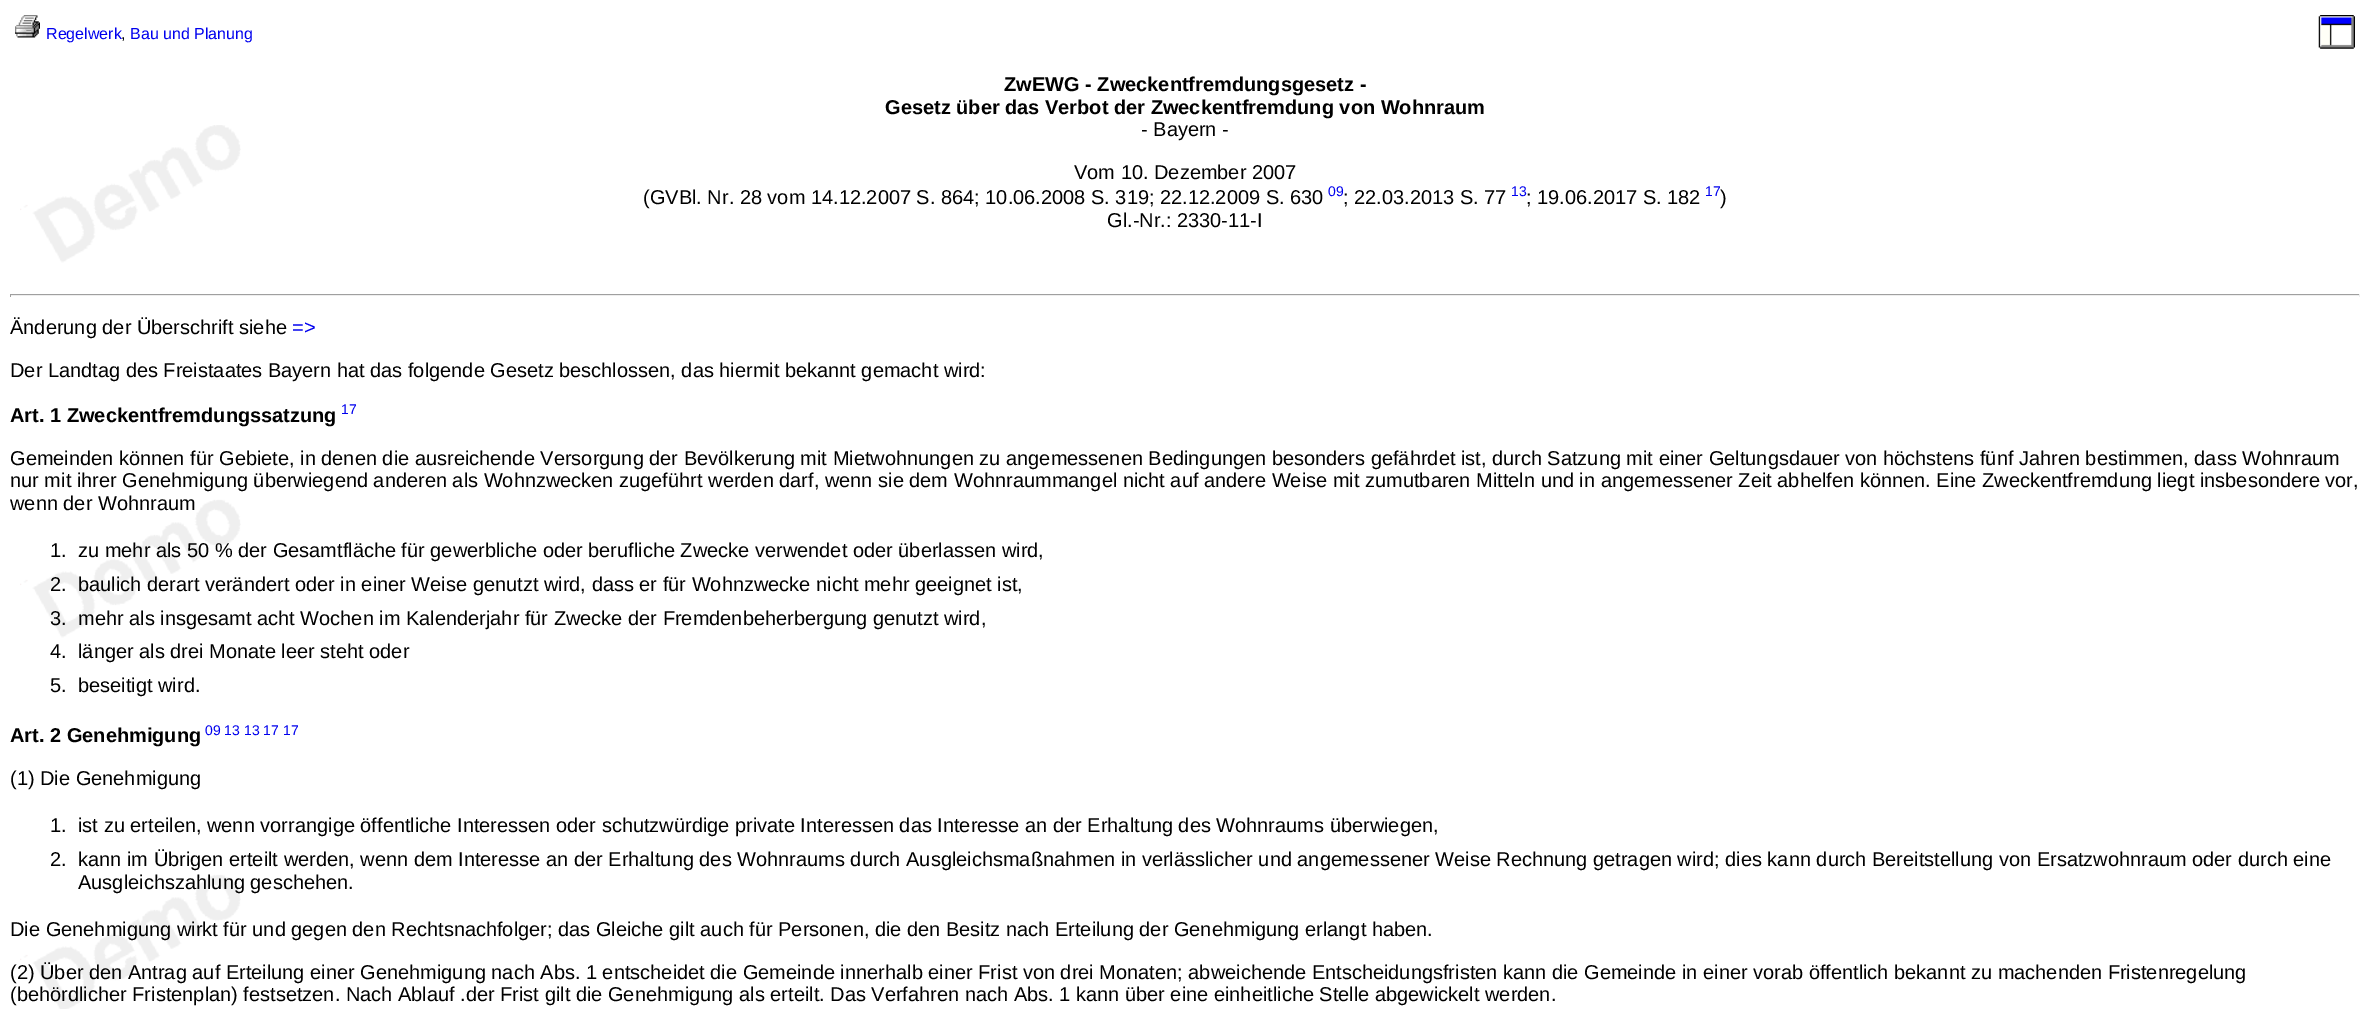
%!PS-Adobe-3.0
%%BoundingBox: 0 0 2369 1009
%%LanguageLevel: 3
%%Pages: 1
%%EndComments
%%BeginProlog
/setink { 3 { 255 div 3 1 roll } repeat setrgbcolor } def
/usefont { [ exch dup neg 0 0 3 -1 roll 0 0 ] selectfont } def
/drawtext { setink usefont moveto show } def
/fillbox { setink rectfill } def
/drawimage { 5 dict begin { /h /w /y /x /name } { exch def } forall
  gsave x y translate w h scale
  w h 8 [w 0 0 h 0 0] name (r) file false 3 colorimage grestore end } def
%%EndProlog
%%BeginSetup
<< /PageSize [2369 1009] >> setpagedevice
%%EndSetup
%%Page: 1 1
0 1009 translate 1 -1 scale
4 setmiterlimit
0 0 2369 1009 255 255 255 fillbox
(assets/img1.rgb) 20 125 221 884 drawimage
(assets/img2.rgb) 15 15 25 23 drawimage
(Regelwerk) 46 39 /LiberationSans-Regular 16 0 0 238 drawtext
(,) 121 39 /LiberationSans-Regular 16 0 0 0 drawtext
(Bau und Planung) 130 39 /LiberationSans-Regular 16 0 0 238 drawtext
(assets/img3.rgb) 2318 15 37 34 drawimage
(ZwEWG - Zweckentfremdungsgesetz -) 1004 91 /LiberationSans-Bold 20 0 0 0 drawtext
(Gesetz über das Verbot der Zweckentfremdung von Wohnraum) 885 114 /LiberationSans-Bold 20 0 0 0 drawtext
(- Bayern -) 1141 136 /LiberationSans-Regular 20 0 0 0 drawtext
(Vom 10. Dezember 2007) 1074 179 /LiberationSans-Regular 20 0 0 0 drawtext
(\(GVBl. Nr. 28 vom 14.12.2007 S. 864; 10.06.2008 S. 319; 22.12.2009 S. 630) 643 204 /LiberationSans-Regular 20 0 0 0 drawtext
(09) 1328 196 /LiberationSans-Regular 14 0 0 238 drawtext
(; 22.03.2013 S. 77) 1343 204 /LiberationSans-Regular 20 0 0 0 drawtext
(13) 1511 196 /LiberationSans-Regular 14 0 0 238 drawtext
(; 19.06.2017 S. 182) 1526 204 /LiberationSans-Regular 20 0 0 0 drawtext
(17) 1705 196 /LiberationSans-Regular 14 0 0 238 drawtext
(\)) 1720 204 /LiberationSans-Regular 20 0 0 0 drawtext
(Gl.-Nr.: 2330-11-I) 1107 227 /LiberationSans-Regular 20 0 0 0 drawtext
10 294 2350 1 159 159 159 fillbox
2359 294 1 3 238 238 238 fillbox
10 295 2350 1 238 238 238 fillbox
10 294 1 3 159 159 159 fillbox
(Änderung der Überschrift siehe) 10 334 /LiberationSans-Regular 20 0 0 0 drawtext
(=>) 292 334 /LiberationSans-Regular 20 0 0 238 drawtext
(Der Landtag des Freistaates Bayern hat das folgende Gesetz beschlossen, das hiermit bekannt gemacht wird:) 10 377 /LiberationSans-Regular 20 0 0 0 drawtext
(Art. 1 Zweckentfremdungssatzung) 10 422 /LiberationSans-Bold 20 0 0 0 drawtext
(17) 341 414 /LiberationSans-Regular 14 0 0 238 drawtext
(Gemeinden können für Gebiete, in denen die ausreichende Versorgung der Bevölkerung mit Mietwohnungen zu angemessenen Bedingungen besonders gefährdet ist, durch Satzung mit einer Geltungsdauer von höchstens fünf Jahren bestimmen, dass Wohnraum) 10 465 /LiberationSans-Regular 20 0 0 0 drawtext
(nur mit ihrer Genehmigung überwiegend anderen als Wohnzwecken zugeführt werden darf, wenn sie dem Wohnraummangel nicht auf andere Weise mit zumutbaren Mitteln und in angemessener Zeit abhelfen können. Eine Zweckentfremdung liegt insbesondere vor,) 10 487 /LiberationSans-Regular 20 0 0 0 drawtext
(wenn der Wohnraum) 10 510 /LiberationSans-Regular 20 0 0 0 drawtext
(1.) 50 557 /LiberationSans-Regular 20 0 0 0 drawtext
(zu mehr als 50 % der Gesamtfläche für gewerbliche oder berufliche Zwecke verwendet oder überlassen wird,) 78 557 /LiberationSans-Regular 20 0 0 0 drawtext
(2.) 50 591 /LiberationSans-Regular 20 0 0 0 drawtext
(baulich derart verändert oder in einer Weise genutzt wird, dass er für Wohnzwecke nicht mehr geeignet ist,) 78 591 /LiberationSans-Regular 20 0 0 0 drawtext
(3.) 50 625 /LiberationSans-Regular 20 0 0 0 drawtext
(mehr als insgesamt acht Wochen im Kalenderjahr für Zwecke der Fremdenbeherbergung genutzt wird,) 78 625 /LiberationSans-Regular 20 0 0 0 drawtext
(4.) 50 658 /LiberationSans-Regular 20 0 0 0 drawtext
(länger als drei Monate leer steht oder) 78 658 /LiberationSans-Regular 20 0 0 0 drawtext
(5.) 50 692 /LiberationSans-Regular 20 0 0 0 drawtext
(beseitigt wird.) 78 692 /LiberationSans-Regular 20 0 0 0 drawtext
(Art. 2 Genehmigung) 10 742 /LiberationSans-Bold 20 0 0 0 drawtext
(09 13 13 17 17) 205 735 /LiberationSans-Regular 14 0 0 238 drawtext
(\(1\) Die Genehmigung) 10 785 /LiberationSans-Regular 20 0 0 0 drawtext
(1.) 50 832 /LiberationSans-Regular 20 0 0 0 drawtext
(ist zu erteilen, wenn vorrangige öffentliche Interessen oder schutzwürdige private Interessen das Interesse an der Erhaltung des Wohnraums überwiegen,) 78 832 /LiberationSans-Regular 20 0 0 0 drawtext
(2.) 50 866 /LiberationSans-Regular 20 0 0 0 drawtext
(kann im Übrigen erteilt werden, wenn dem Interesse an der Erhaltung des Wohnraums durch Ausgleichsmaßnahmen in verlässlicher und angemessener Weise Rechnung getragen wird; dies kann durch Bereitstellung von Ersatzwohnraum oder durch eine) 78 866 /LiberationSans-Regular 20 0 0 0 drawtext
(Ausgleichszahlung geschehen.) 78 889 /LiberationSans-Regular 20 0 0 0 drawtext
(Die Genehmigung wirkt für und gegen den Rechtsnachfolger; das Gleiche gilt auch für Personen, die den Besitz nach Erteilung der Genehmigung erlangt haben.) 10 936 /LiberationSans-Regular 20 0 0 0 drawtext
(\(2\) Über den Antrag auf Erteilung einer Genehmigung nach Abs. 1 entscheidet die Gemeinde innerhalb einer Frist von drei Monaten; abweichende Entscheidungsfristen kann die Gemeinde in einer vorab öffentlich bekannt zu machenden Fristenregelung) 10 979 /LiberationSans-Regular 20 0 0 0 drawtext
(\(behördlicher Fristenplan\) festsetzen. Nach Ablauf .der Frist gilt die Genehmigung als erteilt. Das Verfahren nach Abs. 1 kann über eine einheitliche Stelle abgewickelt werden.) 10 1001 /LiberationSans-Regular 20 0 0 0 drawtext
showpage
%%EOF
